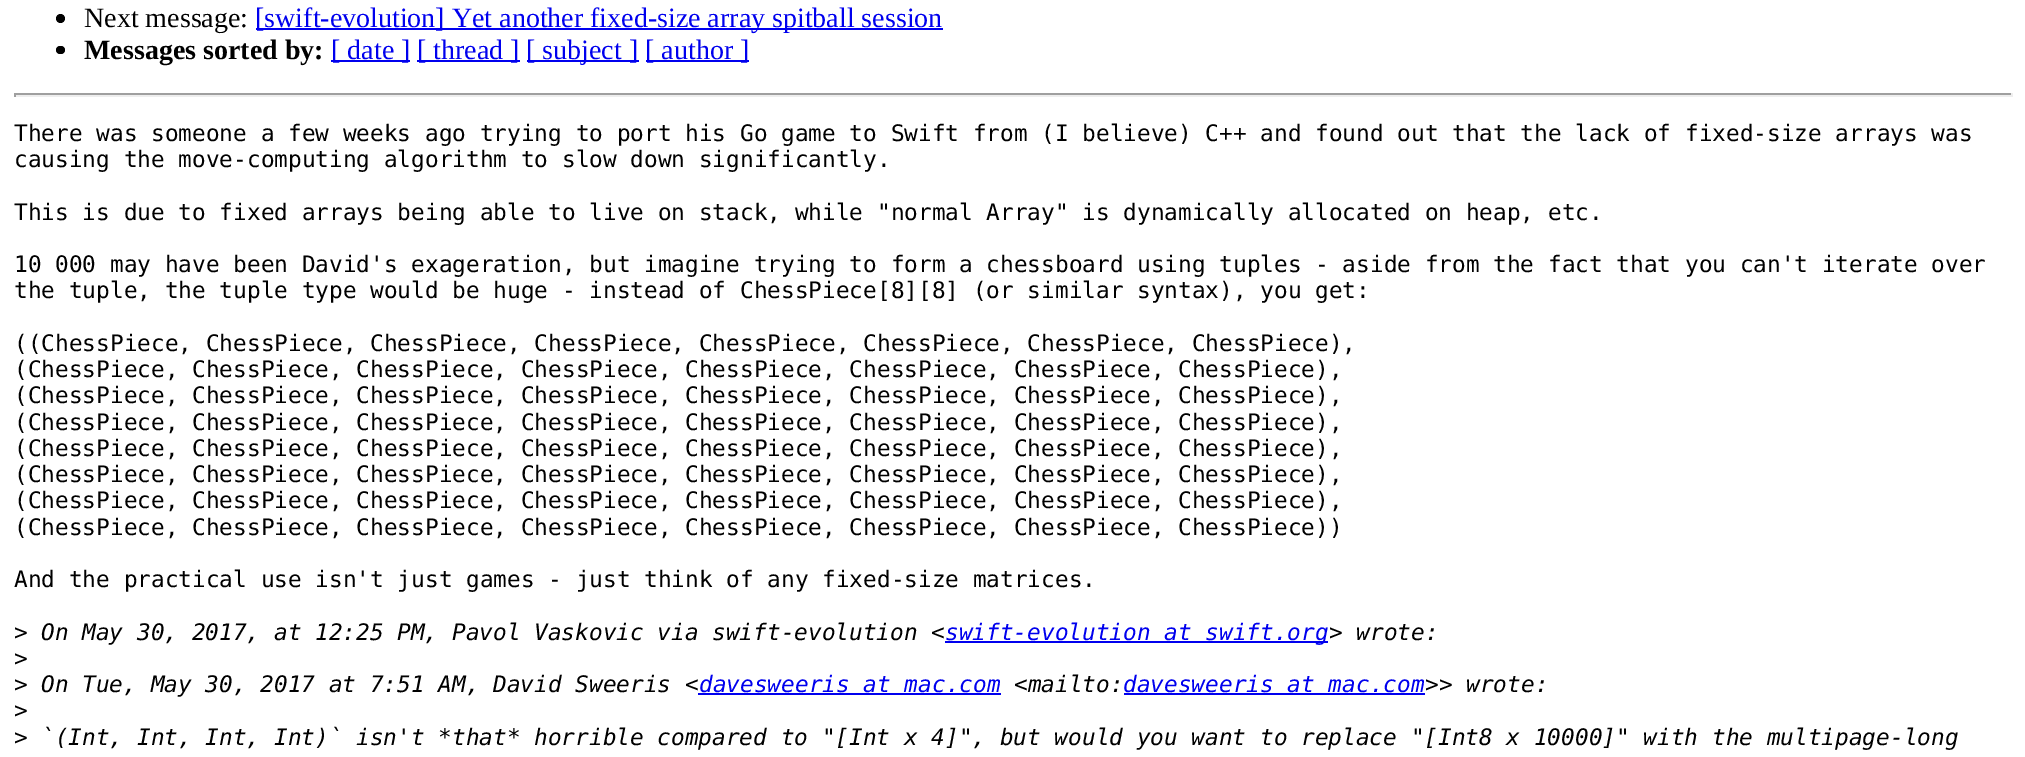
%!PS-Adobe-3.0
%%BoundingBox: 0 0 2025 757
%%LanguageLevel: 3
%%Pages: 1
%%EndComments
%%BeginProlog
/setink { 3 { 255 div 3 1 roll } repeat setrgbcolor } def
/usefont { [ exch dup neg 0 0 3 -1 roll 0 0 ] selectfont } def
/drawtext { setink usefont moveto show } def
/fillbox { setink rectfill } def
/disc { newpath 0 360 arc closepath } def
/rrect { 5 dict begin { /r /h /w /y /x } { exch def } forall
  x r add y moveto x w add y 2 copy h add r arct x w add y h add x 1 index r arct
  x y h add x y r arct x y 2 copy exch w add exch r arct closepath end } def
%%EndProlog
%%BeginSetup
<< /PageSize [2025 757] >> setpagedevice
%%EndSetup
%%Page: 1 1
0 757 translate 1 -1 scale
4 setmiterlimit
0 0 2025 757 255 255 255 fillbox
0 0 0 setink
60.5 18.5 4.5 disc fill
(Next message:) 84 27 /LiberationSerif-Regular 28 0 0 0 drawtext
256 28 687 2 0 0 238 fillbox
([swift-evolution] Yet another fixed-size array spitball session) 255 27 /LiberationSerif-Regular 28 0 0 238 drawtext
0 0 0 setink
56 46 9 8 4 rrect fill
(Messages sorted by:) 84 59 /LiberationSerif-Bold 28 0 0 0 drawtext
331 60 79 2 0 0 238 fillbox
([ date ]) 331 59 /LiberationSerif-Regular 28 0 0 238 drawtext
417 60 103 2 0 0 238 fillbox
([ thread ]) 417 59 /LiberationSerif-Regular 28 0 0 238 drawtext
527 60 112 2 0 0 238 fillbox
([ subject ]) 526 59 /LiberationSerif-Regular 28 0 0 238 drawtext
646 60 103 2 0 0 238 fillbox
([ author ]) 645 59 /LiberationSerif-Regular 28 0 0 238 drawtext
14 93 1999 2 159 159 159 fillbox
2011 93 2 4 238 238 238 fillbox
14 95 1999 2 238 238 238 fillbox
14 93 2 4 159 159 159 fillbox
(There was someone a few weeks ago trying to port his Go game to Swift from \(I believe\) C++ and found out that the lack of fixed-size arrays was) 14 141 /DejaVuSansMono-Regular 22.75 0 0 0 drawtext
(causing the move-computing algorithm to slow down significantly.) 14 167 /DejaVuSansMono-Regular 22.75 0 0 0 drawtext
(This is due to fixed arrays being able to live on stack, while "normal Array" is dynamically allocated on heap, etc.) 14 220 /DejaVuSansMono-Regular 22.75 0 0 0 drawtext
(10 000 may have been David's exageration, but imagine trying to form a chessboard using tuples - aside from the fact that you can't iterate over) 14 272 /DejaVuSansMono-Regular 22.75 0 0 0 drawtext
(the tuple, the tuple type would be huge - instead of ChessPiece[8][8] \(or similar syntax\), you get:) 14 298 /DejaVuSansMono-Regular 22.75 0 0 0 drawtext
(\(\(ChessPiece, ChessPiece, ChessPiece, ChessPiece, ChessPiece, ChessPiece, ChessPiece, ChessPiece\),) 14 351 /DejaVuSansMono-Regular 22.75 0 0 0 drawtext
(\(ChessPiece, ChessPiece, ChessPiece, ChessPiece, ChessPiece, ChessPiece, ChessPiece, ChessPiece\),) 14 377 /DejaVuSansMono-Regular 22.75 0 0 0 drawtext
(\(ChessPiece, ChessPiece, ChessPiece, ChessPiece, ChessPiece, ChessPiece, ChessPiece, ChessPiece\),) 14 403 /DejaVuSansMono-Regular 22.75 0 0 0 drawtext
(\(ChessPiece, ChessPiece, ChessPiece, ChessPiece, ChessPiece, ChessPiece, ChessPiece, ChessPiece\),) 14 430 /DejaVuSansMono-Regular 22.75 0 0 0 drawtext
(\(ChessPiece, ChessPiece, ChessPiece, ChessPiece, ChessPiece, ChessPiece, ChessPiece, ChessPiece\),) 14 456 /DejaVuSansMono-Regular 22.75 0 0 0 drawtext
(\(ChessPiece, ChessPiece, ChessPiece, ChessPiece, ChessPiece, ChessPiece, ChessPiece, ChessPiece\),) 14 482 /DejaVuSansMono-Regular 22.75 0 0 0 drawtext
(\(ChessPiece, ChessPiece, ChessPiece, ChessPiece, ChessPiece, ChessPiece, ChessPiece, ChessPiece\),) 14 508 /DejaVuSansMono-Regular 22.75 0 0 0 drawtext
(\(ChessPiece, ChessPiece, ChessPiece, ChessPiece, ChessPiece, ChessPiece, ChessPiece, ChessPiece\)\)) 14 535 /DejaVuSansMono-Regular 22.75 0 0 0 drawtext
(And the practical use isn't just games - just think of any fixed-size matrices.) 14 587 /DejaVuSansMono-Regular 22.75 0 0 0 drawtext
(>) 14 640 /DejaVuSansMono-Regular 22.75 0 0 0 drawtext
(On May 30, 2017, at 12:25 PM, Pavol Vaskovic via swift-evolution <) 41 640 /DejaVuSansMono-Italic 22.75 0 0 0 drawtext
945 641 383 2 0 0 238 fillbox
(swift-evolution at swift.org) 945 640 /DejaVuSansMono-Italic 22.75 0 0 238 drawtext
(> wrote:) 1329 640 /DejaVuSansMono-Italic 22.75 0 0 0 drawtext
(>) 14 666 /DejaVuSansMono-Regular 22.75 0 0 0 drawtext
(>) 14 692 /DejaVuSansMono-Regular 22.75 0 0 0 drawtext
(On Tue, May 30, 2017 at 7:51 AM, David Sweeris <) 41 692 /DejaVuSansMono-Italic 22.75 0 0 0 drawtext
698 693 303 2 0 0 238 fillbox
(davesweeris at mac.com) 699 692 /DejaVuSansMono-Italic 22.75 0 0 238 drawtext
(<mailto:) 1014 692 /DejaVuSansMono-Italic 22.75 0 0 0 drawtext
(davesweeris at mac.com) 1123 692 /DejaVuSansMono-Italic 22.75 0 0 238 drawtext
(>> wrote:) 1425 692 /DejaVuSansMono-Italic 22.75 0 0 0 drawtext
1124 693 301 2 0 0 238 fillbox
(>) 14 718 /DejaVuSansMono-Regular 22.75 0 0 0 drawtext
(>) 14 745 /DejaVuSansMono-Regular 22.75 0 0 0 drawtext
(`\(Int, Int, Int, Int\)` isn't *that* horrible compared to "[Int x 4]", but would you want to replace "[Int8 x 10000]" with the multipage-long) 41 745 /DejaVuSansMono-Italic 22.75 0 0 0 drawtext
showpage
%%EOF
